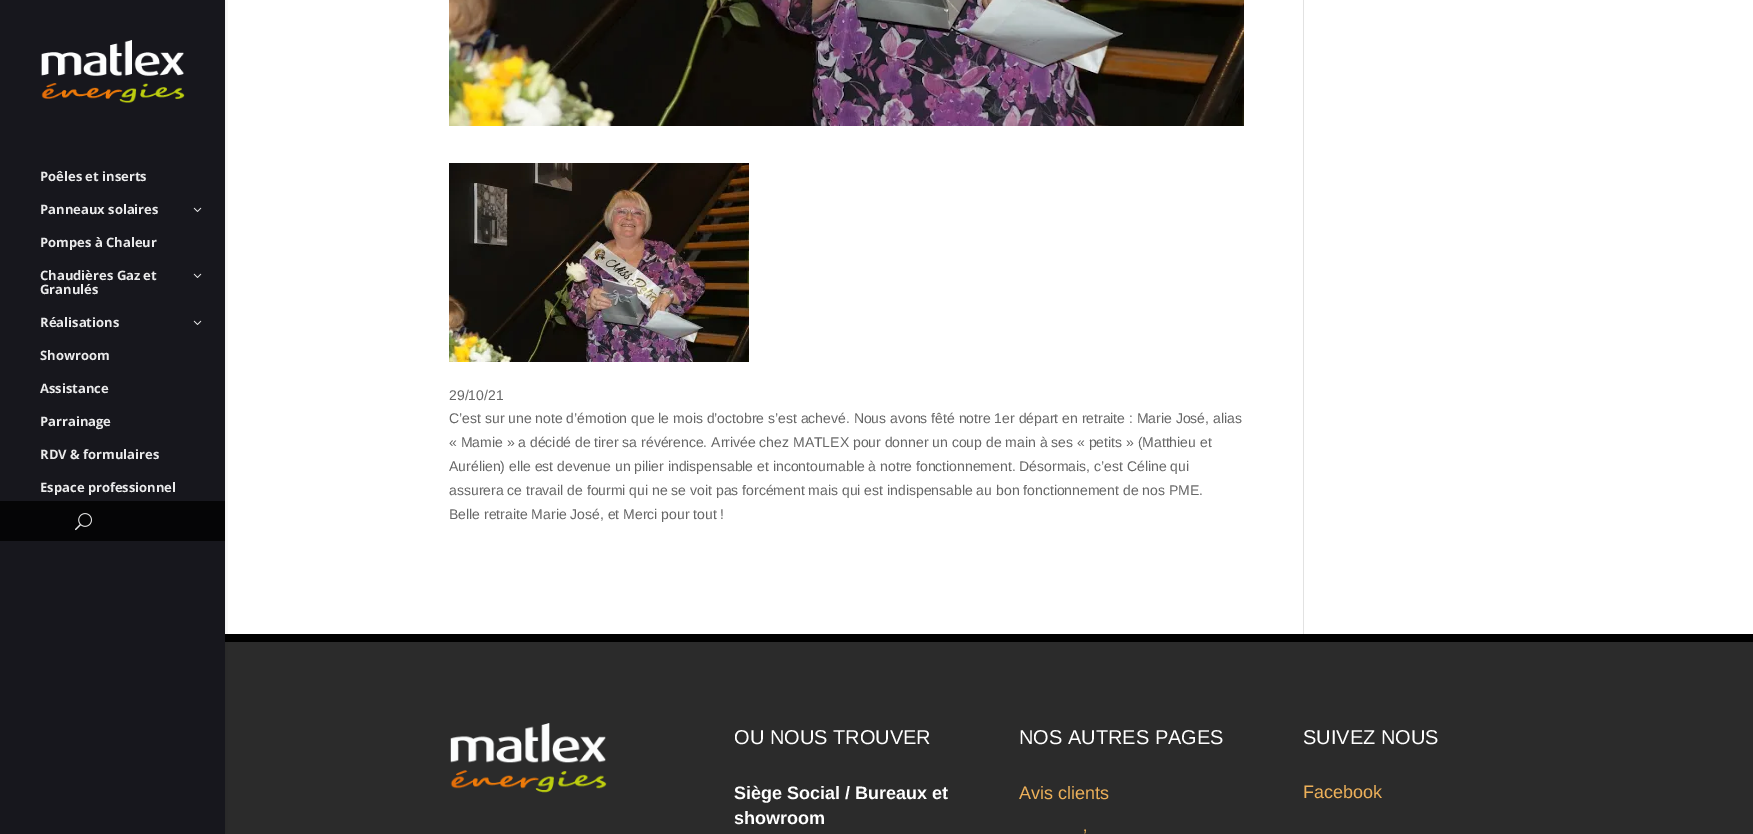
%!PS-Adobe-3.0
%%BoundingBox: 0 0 1753 834
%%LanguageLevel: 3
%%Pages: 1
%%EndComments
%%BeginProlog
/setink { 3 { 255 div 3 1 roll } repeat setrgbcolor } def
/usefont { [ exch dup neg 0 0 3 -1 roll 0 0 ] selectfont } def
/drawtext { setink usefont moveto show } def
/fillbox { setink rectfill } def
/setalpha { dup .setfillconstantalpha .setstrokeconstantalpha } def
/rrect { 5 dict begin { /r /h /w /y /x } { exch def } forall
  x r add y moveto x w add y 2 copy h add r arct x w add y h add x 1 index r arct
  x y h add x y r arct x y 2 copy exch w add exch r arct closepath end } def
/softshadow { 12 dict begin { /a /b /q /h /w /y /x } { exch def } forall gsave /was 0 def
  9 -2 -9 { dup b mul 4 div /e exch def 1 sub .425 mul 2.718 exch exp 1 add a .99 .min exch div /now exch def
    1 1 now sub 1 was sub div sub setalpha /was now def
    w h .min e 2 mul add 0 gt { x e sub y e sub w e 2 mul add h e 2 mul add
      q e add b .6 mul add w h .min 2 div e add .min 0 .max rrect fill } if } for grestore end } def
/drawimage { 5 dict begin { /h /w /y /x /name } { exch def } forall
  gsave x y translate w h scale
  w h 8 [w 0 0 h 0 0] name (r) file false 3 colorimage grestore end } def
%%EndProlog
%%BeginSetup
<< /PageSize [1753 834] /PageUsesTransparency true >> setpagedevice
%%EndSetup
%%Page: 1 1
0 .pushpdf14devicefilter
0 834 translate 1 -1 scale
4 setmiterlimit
0 0 1753 834 23 23 29 fillbox
225 0 1528 634 255 255 255 fillbox
225 642 1528 192 43 43 43 fillbox
225 634 1528 8 0 0 0 fillbox
gsave
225 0 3 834 rectclip
0 0 225 834 0 3.5 0.1 softshadow
grestore
(assets/img1.rgb) 41 40 144 63 drawimage
(Poêles et inserts) 40 181 /OpenSans-Bold 13 234 234 235 drawtext
(Panneaux solaires) 40 214 /OpenSans-Bold 13 234 234 235 drawtext
(assets/img2.rgb) 193 207 9 5 drawimage
(Pompes à Chaleur) 40 247 /OpenSans-Bold 13 234 234 235 drawtext
(Chaudières Gaz et) 40 280 /OpenSans-Bold 13 234 234 235 drawtext
(assets/img2.rgb) 193 273 9 5 drawimage
(Granulés) 40 294 /OpenSans-Bold 13 234 234 235 drawtext
(Réalisations) 40 327 /OpenSans-Bold 13 234 234 235 drawtext
(assets/img2.rgb) 193 320 9 5 drawimage
(Showroom) 40 360 /OpenSans-Bold 13 234 234 235 drawtext
(Assistance) 40 393 /OpenSans-Bold 13 234 234 235 drawtext
(Parrainage) 40 426 /OpenSans-Bold 13 234 234 235 drawtext
(RDV & formulaires) 40 459 /OpenSans-Bold 13 234 234 235 drawtext
(Espace professionnel) 40 492 /OpenSans-Bold 13 234 234 235 drawtext
0 501 225 40 5 5 6 fillbox
(assets/img3.rgb) 75 513 17 18 drawimage
(assets/img4.rgb) 449 0 795 126 drawimage
(assets/img5.rgb) 449 163 300 199 drawimage
(29/10/21) 449 400 /LiberationSans-Regular 14 102 102 102 drawtext
(C’est sur une note d’émotion que le mois d’octobre s’est achevé. Nous avons fêté notre 1er départ en retraite : Marie José, alias) 449 423 /LiberationSans-Regular 14 102 102 102 drawtext
(« Mamie » a décidé de tirer sa révérence. Arrivée chez MATLEX pour donner un coup de main à ses « petits » \(Matthieu et) 449 447 /LiberationSans-Regular 14 102 102 102 drawtext
(Aurélien\) elle est devenue un pilier indispensable et incontournable à notre fonctionnement. Désormais, c’est Céline qui) 449 471 /LiberationSans-Regular 14 102 102 102 drawtext
(assurera ce travail de fourmi qui ne se voit pas forcément mais qui est indispensable au bon fonctionnement de nos PME.) 449 495 /LiberationSans-Regular 14 102 102 102 drawtext
(Belle retraite Marie José, et Merci pour tout !) 449 519 /LiberationSans-Regular 14 102 102 102 drawtext
1303 0 1 634 226 226 226 fillbox
(assets/img6.rgb) 450 723 157 70 drawimage
(OU NOUS TROUVER) 734 744 /LiberationSans-Regular 20 255 255 255 drawtext
(Siège Social / Bureaux et) 734 799 /LiberationSans-Bold 18 255 255 255 drawtext
(showroom) 734 824 /LiberationSans-Bold 18 255 255 255 drawtext
(NOS AUTRES PAGES) 1019 744 /LiberationSans-Regular 20 255 255 255 drawtext
(Avis clients) 1019 799 /LiberationSans-Regular 18 237 176 89 drawtext
(’) 1083 842 /LiberationSans-Regular 18 237 176 89 drawtext
(SUIVEZ NOUS) 1303 744 /LiberationSans-Regular 20 255 255 255 drawtext
(Facebook) 1303 798 /LiberationSans-Regular 18 237 176 89 drawtext
.poppdf14devicefilter showpage
%%EOF
